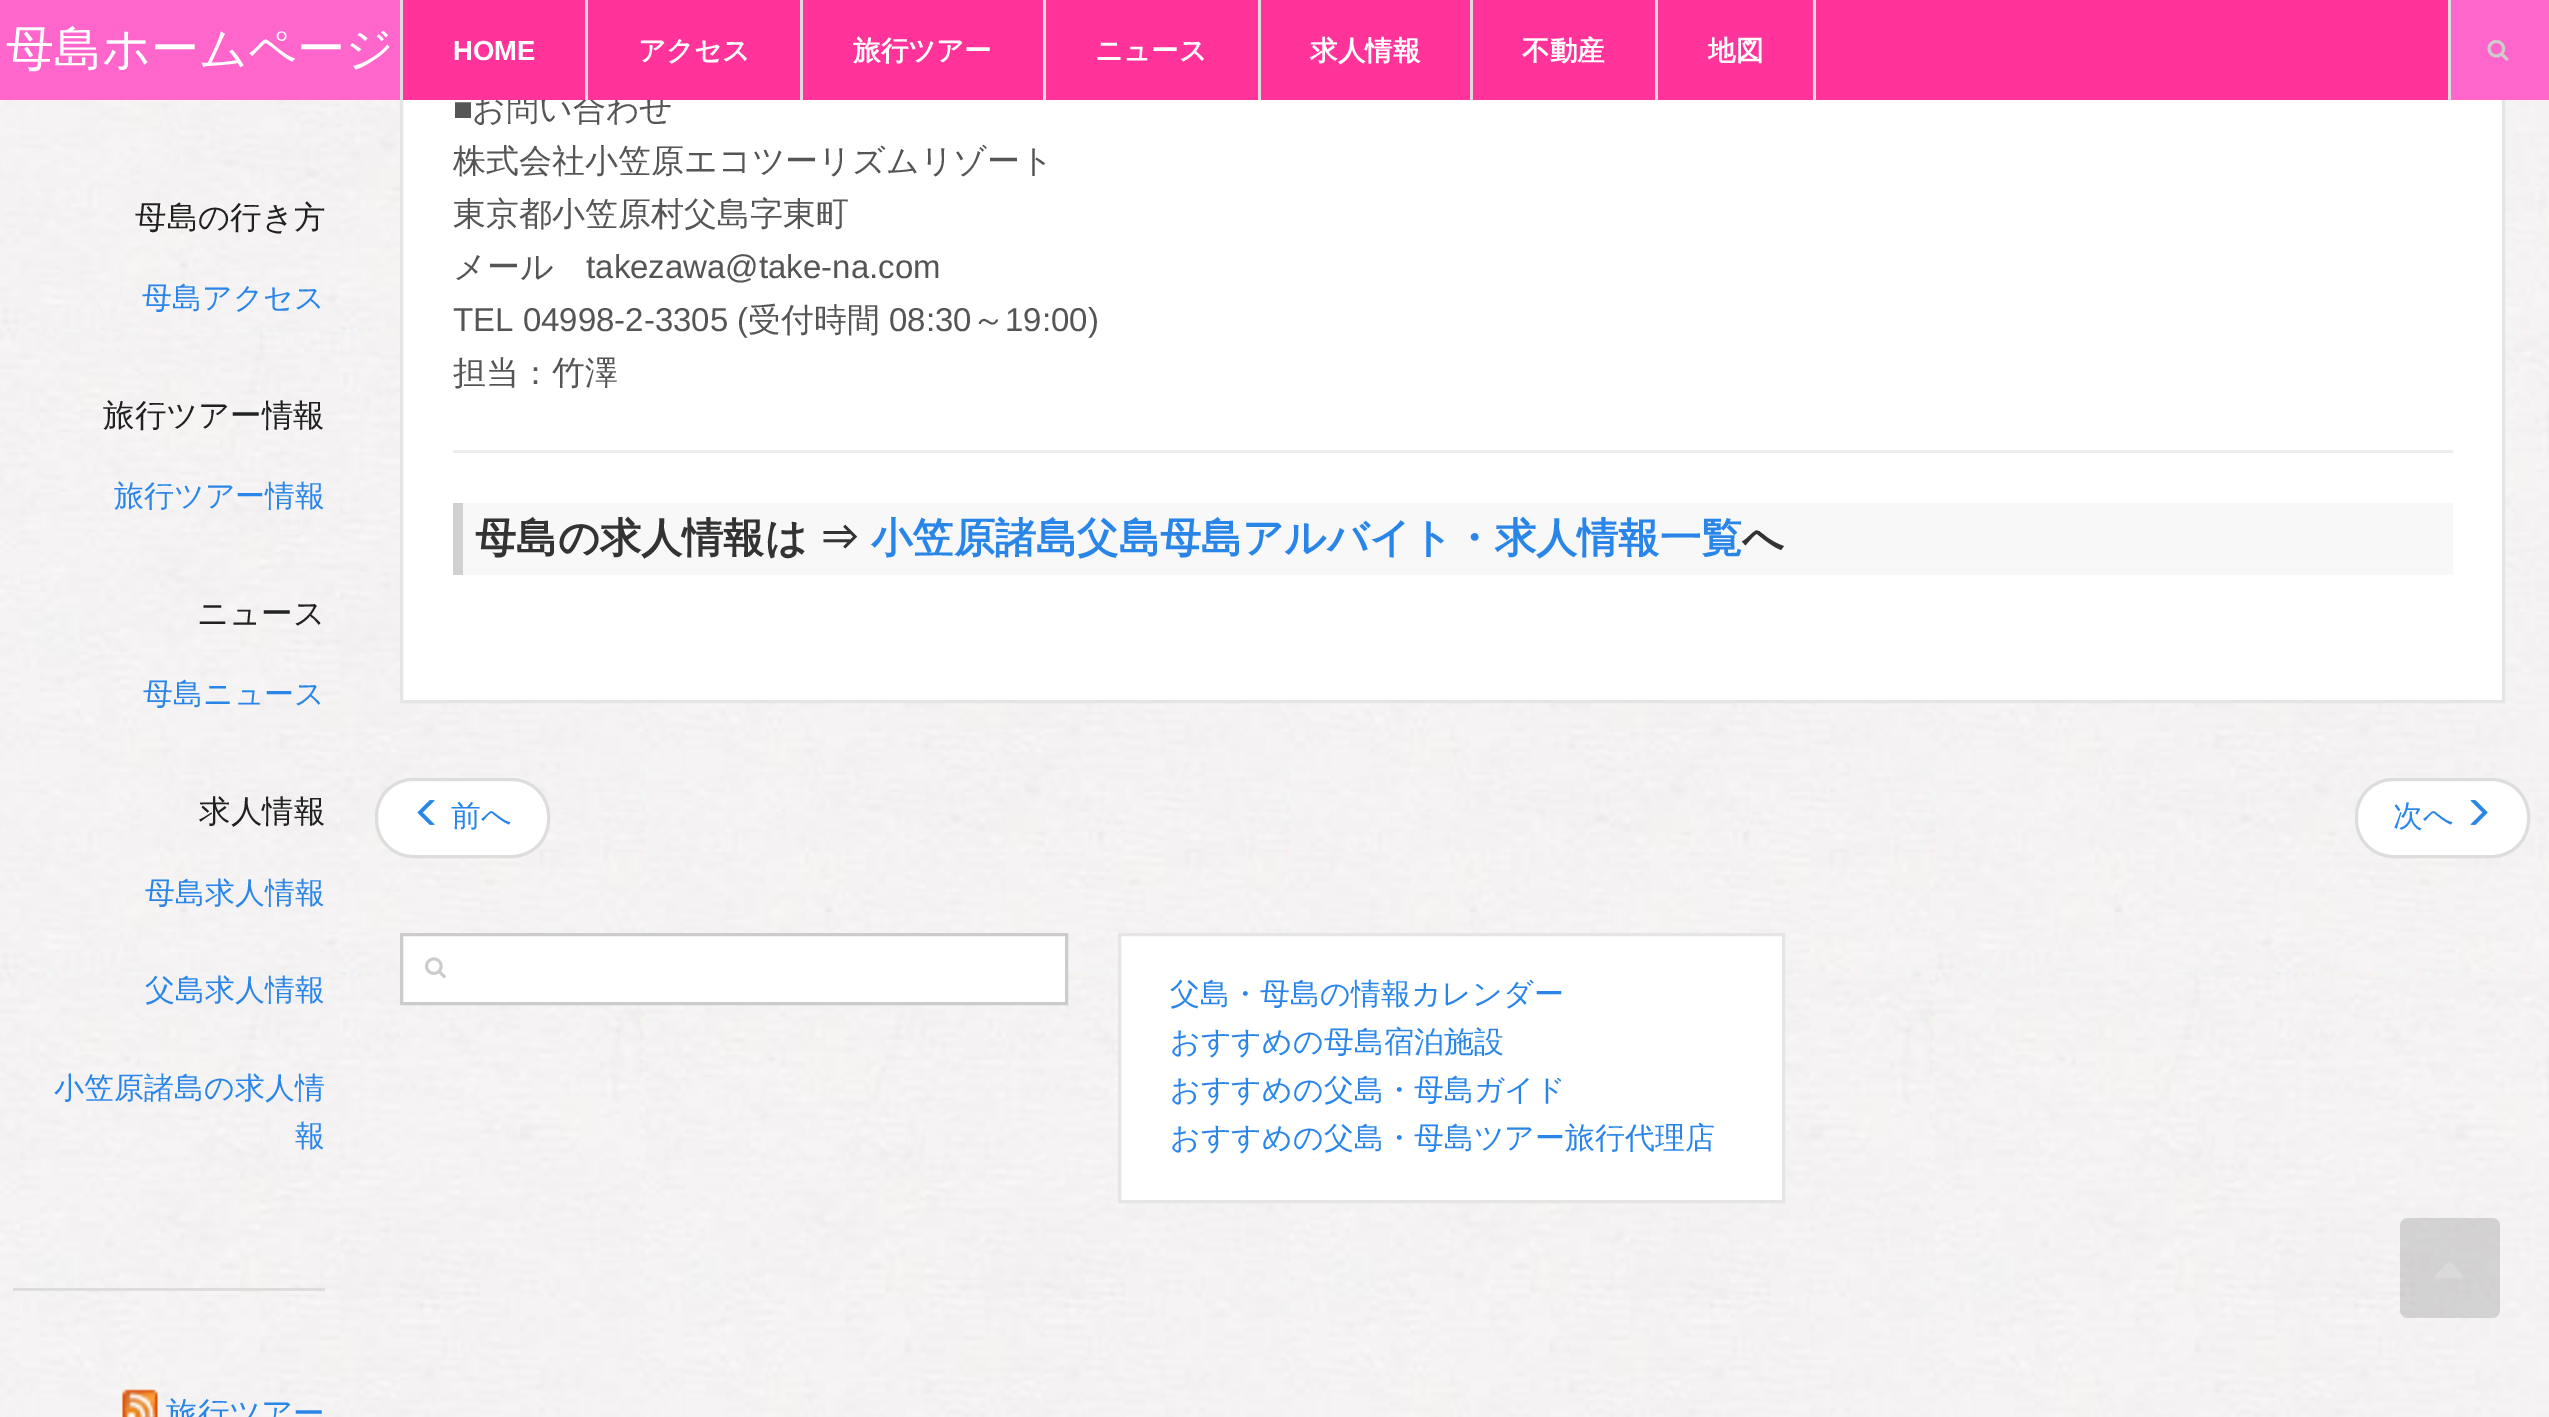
%!PS-Adobe-3.0
%%BoundingBox: 0 0 2549 1417
%%LanguageLevel: 3
%%Pages: 1
%%EndComments
%%BeginProlog
/setink { 3 { 255 div 3 1 roll } repeat setrgbcolor } def
/usefont { [ exch dup neg 0 0 3 -1 roll 0 0 ] selectfont } def
/drawtext { setink usefont moveto show } def
/fillbox { setink rectfill } def
/setalpha { dup .setfillconstantalpha .setstrokeconstantalpha } def
/rrect { 5 dict begin { /r /h /w /y /x } { exch def } forall
  x r add y moveto x w add y 2 copy h add r arct x w add y h add x 1 index r arct
  x y h add x y r arct x y 2 copy exch w add exch r arct closepath end } def
/drawimage { 5 dict begin { /h /w /y /x /name } { exch def } forall
  gsave x y translate w h scale
  w h 8 [w 0 0 h 0 0] name (r) file false 3 colorimage grestore end } def
%%EndProlog
%%BeginSetup
<< /PageSize [2549 1417] /PageUsesTransparency true >> setpagedevice
%%EndSetup
%%Page: 1 1
0 .pushpdf14devicefilter
0 1417 translate 1 -1 scale
4 setmiterlimit
0 0 2549 1417 255 255 255 fillbox
(assets/img1.rgb) 0 100 2549 1317 drawimage
403 100 2099 600 255 255 255 fillbox
229 229 229 setink
3 setlinewidth
401.5 -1.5 2102 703 rectstroke
(お問い合わせ) 472 120 /WenQuanYiZenHei-Medium 33 85 85 85 drawtext
403 0 2045 100 255 51 153 fillbox
0 0 400 100 255 102 204 fillbox
(母島ホームページ) 6 65 /WenQuanYiZenHei-Medium 48 255 255 255 drawtext
585 0 3 100 221 221 221 fillbox
400 0 3 100 221 221 221 fillbox
(HOME) 453 60 /LiberationSans-Bold 27.5 255 255 255 drawtext
800 0 3 100 221 221 221 fillbox
(アクセス) 638 60 /WenQuanYiZenHei-Bold 27.5 255 255 255 drawtext
1043 0 3 100 221 221 221 fillbox
(旅行ツアー) 853 60 /WenQuanYiZenHei-Bold 27.5 255 255 255 drawtext
1258 0 3 100 221 221 221 fillbox
(ニュース) 1095 60 /WenQuanYiZenHei-Bold 27.5 255 255 255 drawtext
1470 0 3 100 221 221 221 fillbox
(求人情報) 1310 60 /WenQuanYiZenHei-Bold 27.5 255 255 255 drawtext
1655 0 3 100 221 221 221 fillbox
(不動産) 1522 60 /WenQuanYiZenHei-Bold 27.5 255 255 255 drawtext
1813 0 3 100 221 221 221 fillbox
(地図) 1708 60 /WenQuanYiZenHei-Bold 27.5 255 255 255 drawtext
2451 0 98 100 255 102 204 fillbox
2448 0 3 100 221 221 221 fillbox
(assets/img2.rgb) 2487 39 22 22 drawimage
13 1288 312 3 221 221 221 fillbox
(母島の行き方) 135 228 /WenQuanYiZenHei-Medium 31.5 33 33 33 drawtext
(母島アクセス) 142 308 /WenQuanYiZenHei-Medium 30 41 133 232 drawtext
(旅行ツアー情報) 103 426 /WenQuanYiZenHei-Medium 31.5 33 33 33 drawtext
(旅行ツアー情報) 114 506 /WenQuanYiZenHei-Medium 30 41 133 232 drawtext
(ニュース) 197 624 /WenQuanYiZenHei-Medium 31.5 33 33 33 drawtext
(母島ニュース) 143 704 /WenQuanYiZenHei-Medium 30 41 133 232 drawtext
(求人情報) 199 822 /WenQuanYiZenHei-Medium 31.5 33 33 33 drawtext
(母島求人情報) 145 903 /WenQuanYiZenHei-Medium 30 41 133 232 drawtext
(父島求人情報) 145 1000 /WenQuanYiZenHei-Medium 30 41 133 232 drawtext
(小笠原諸島の求人情) 54 1098 /WenQuanYiZenHei-Medium 30 41 133 232 drawtext
(報) 295 1146 /WenQuanYiZenHei-Medium 30 41 133 232 drawtext
(assets/img3.rgb) 122 1389 36 28 drawimage
(旅行ツアー) 166 1424 /WenQuanYiZenHei-Medium 31.5 41 133 232 drawtext
(■) 453 120 /LiberationSans-Regular 33 85 85 85 drawtext
(株式会社小笠原エコツーリズムリゾート) 453 172 /WenQuanYiZenHei-Medium 33 85 85 85 drawtext
(東京都小笠原村父島字東町) 453 225 /WenQuanYiZenHei-Medium 33 85 85 85 drawtext
(メール) 453 278 /WenQuanYiZenHei-Medium 33 85 85 85 drawtext
(takezawa@take-na.com) 586 278 /LiberationSans-Regular 33 85 85 85 drawtext
(TEL 04998-2-3305 \() 453 331 /LiberationSans-Regular 33 85 85 85 drawtext
(受付時間) 748 331 /WenQuanYiZenHei-Medium 33 85 85 85 drawtext
(08:30) 889 331 /LiberationSans-Regular 33 85 85 85 drawtext
(～) 972 331 /WenQuanYiZenHei-Medium 33 85 85 85 drawtext
(19:00\)) 1005 331 /LiberationSans-Regular 33 85 85 85 drawtext
(担当：竹澤) 453 384 /WenQuanYiZenHei-Medium 33 85 85 85 drawtext
453 450 2000 3 238 238 238 fillbox
463 503 1990 72 248 248 248 fillbox
453 503 10 72 208 208 208 fillbox
/WenQuanYiZenHei-Bold 41.25 usefont
51 51 51 setink
475 552 moveto -1 0 32 (母島の求人情報は ⇒) widthshow
(小笠原諸島父島母島アルバイト・求人情報一覧) 871 552 /WenQuanYiZenHei-Bold 41.25 41 133 232 drawtext
(へ) 1742 552 /WenQuanYiZenHei-Bold 41.25 51 51 51 drawtext
255 255 255 setink
376.5 779.5 172 77 36.5 rrect gsave fill grestore
221 221 221 setink
stroke
(assets/img4.rgb) 417 800 18 25 drawimage
(前へ) 451 826 /WenQuanYiZenHei-Medium 30 41 133 232 drawtext
255 255 255 setink
2356.5 779.5 172 77 36.5 rrect gsave fill grestore
221 221 221 setink
stroke
(次へ) 2393 826 /WenQuanYiZenHei-Medium 30 41 133 232 drawtext
(assets/img5.rgb) 2470 800 18 25 drawimage
255 255 255 setink
401.5 934.5 moveto 1066.5 934.5 lineto 1066.5 1003.5 lineto 401.5 1003.5 lineto closepath gsave fill grestore
204 204 204 setink
stroke
(assets/img6.rgb) 425 957 21 22 drawimage
255 255 255 setink
1119.5 934.5 moveto 1783.5 934.5 lineto 1783.5 1201.5 lineto 1119.5 1201.5 lineto closepath gsave fill grestore
229 229 229 setink
stroke
(父島・母島の情報カレンダー) 1170 1004 /WenQuanYiZenHei-Medium 30 41 133 232 drawtext
(おすすめの母島宿泊施設) 1170 1052 /WenQuanYiZenHei-Medium 30 41 133 232 drawtext
(おすすめの父島・母島ガイド) 1170 1100 /WenQuanYiZenHei-Medium 30 41 133 232 drawtext
(おすすめの父島・母島ツアー旅行代理店) 1170 1148 /WenQuanYiZenHei-Medium 30 41 133 232 drawtext
0.17 setalpha
51 51 51 setink
2400 1218 100 100 8 rrect fill
1 setalpha
(assets/img7.rgb) 2435 1262 28 16 drawimage
.poppdf14devicefilter showpage
%%EOF
